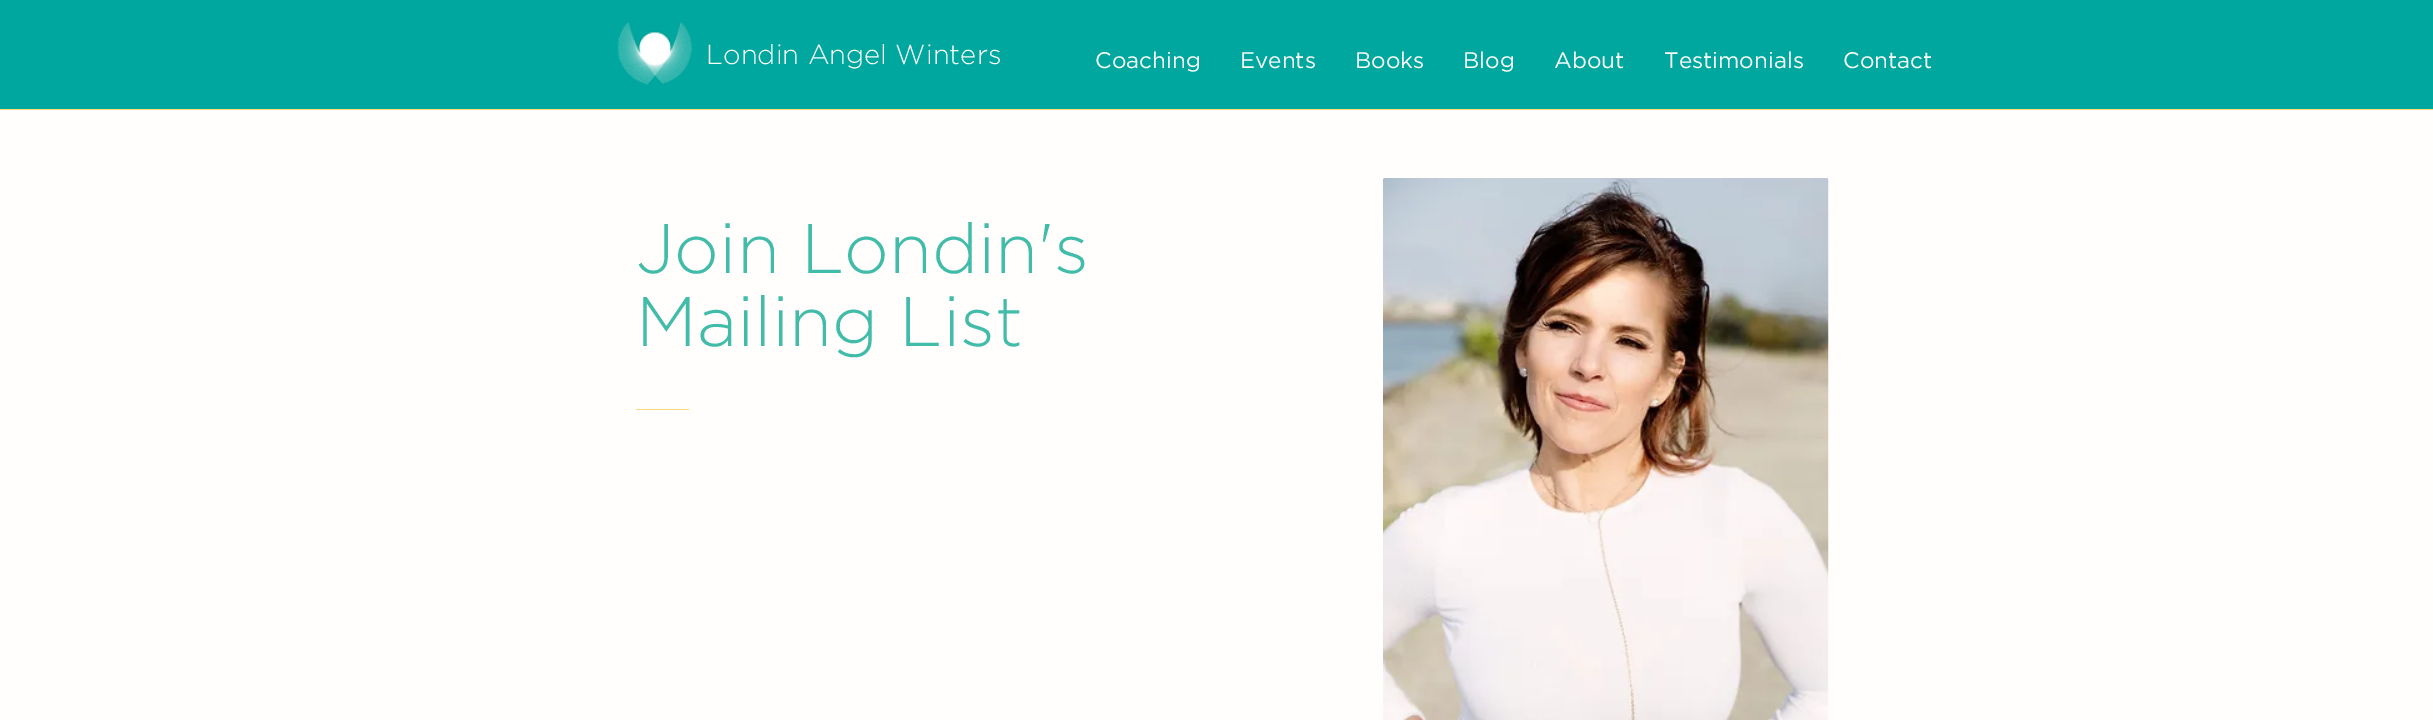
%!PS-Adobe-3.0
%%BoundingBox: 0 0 2433 720
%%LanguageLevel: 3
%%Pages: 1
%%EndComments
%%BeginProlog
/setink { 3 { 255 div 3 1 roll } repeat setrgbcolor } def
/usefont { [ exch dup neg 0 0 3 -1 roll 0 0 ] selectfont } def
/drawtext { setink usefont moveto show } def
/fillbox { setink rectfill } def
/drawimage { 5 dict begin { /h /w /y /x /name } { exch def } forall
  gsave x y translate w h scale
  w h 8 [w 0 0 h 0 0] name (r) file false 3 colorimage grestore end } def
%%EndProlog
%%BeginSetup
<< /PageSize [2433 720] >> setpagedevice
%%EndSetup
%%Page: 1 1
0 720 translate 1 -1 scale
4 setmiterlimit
0 0 2433 720 255 254 252 fillbox
0 0 2433 109 0 167 158 fillbox
0 109 2433 1 255 217 122 fillbox
(assets/img1.rgb) 617 22 76 63 drawimage
(Londin Angel Winters) 706 64 /Gotham-Light 27.5 255 255 255 drawtext
(Coaching) 1095 68 /Gotham-Regular 22.5 255 255 255 drawtext
(Events) 1240 68 /Gotham-Regular 22.5 255 255 255 drawtext
(Books) 1355 68 /Gotham-Regular 22.5 255 255 255 drawtext
(Blog) 1463 68 /Gotham-Regular 22.5 255 255 255 drawtext
(About) 1554 68 /Gotham-Regular 22.5 255 255 255 drawtext
(Testimonials) 1664 68 /Gotham-Regular 22.5 255 255 255 drawtext
(Contact) 1843 68 /Gotham-Regular 22.5 255 255 255 drawtext
(Join Londin's) 636 273 /Gotham-Light 70 64 188 168 drawtext
(Mailing List) 636 346 /Gotham-Light 70 64 188 168 drawtext
(assets/img2.rgb) 1383 178 446 542 drawimage
636 409 53 1 255 217 122 fillbox
showpage
%%EOF
